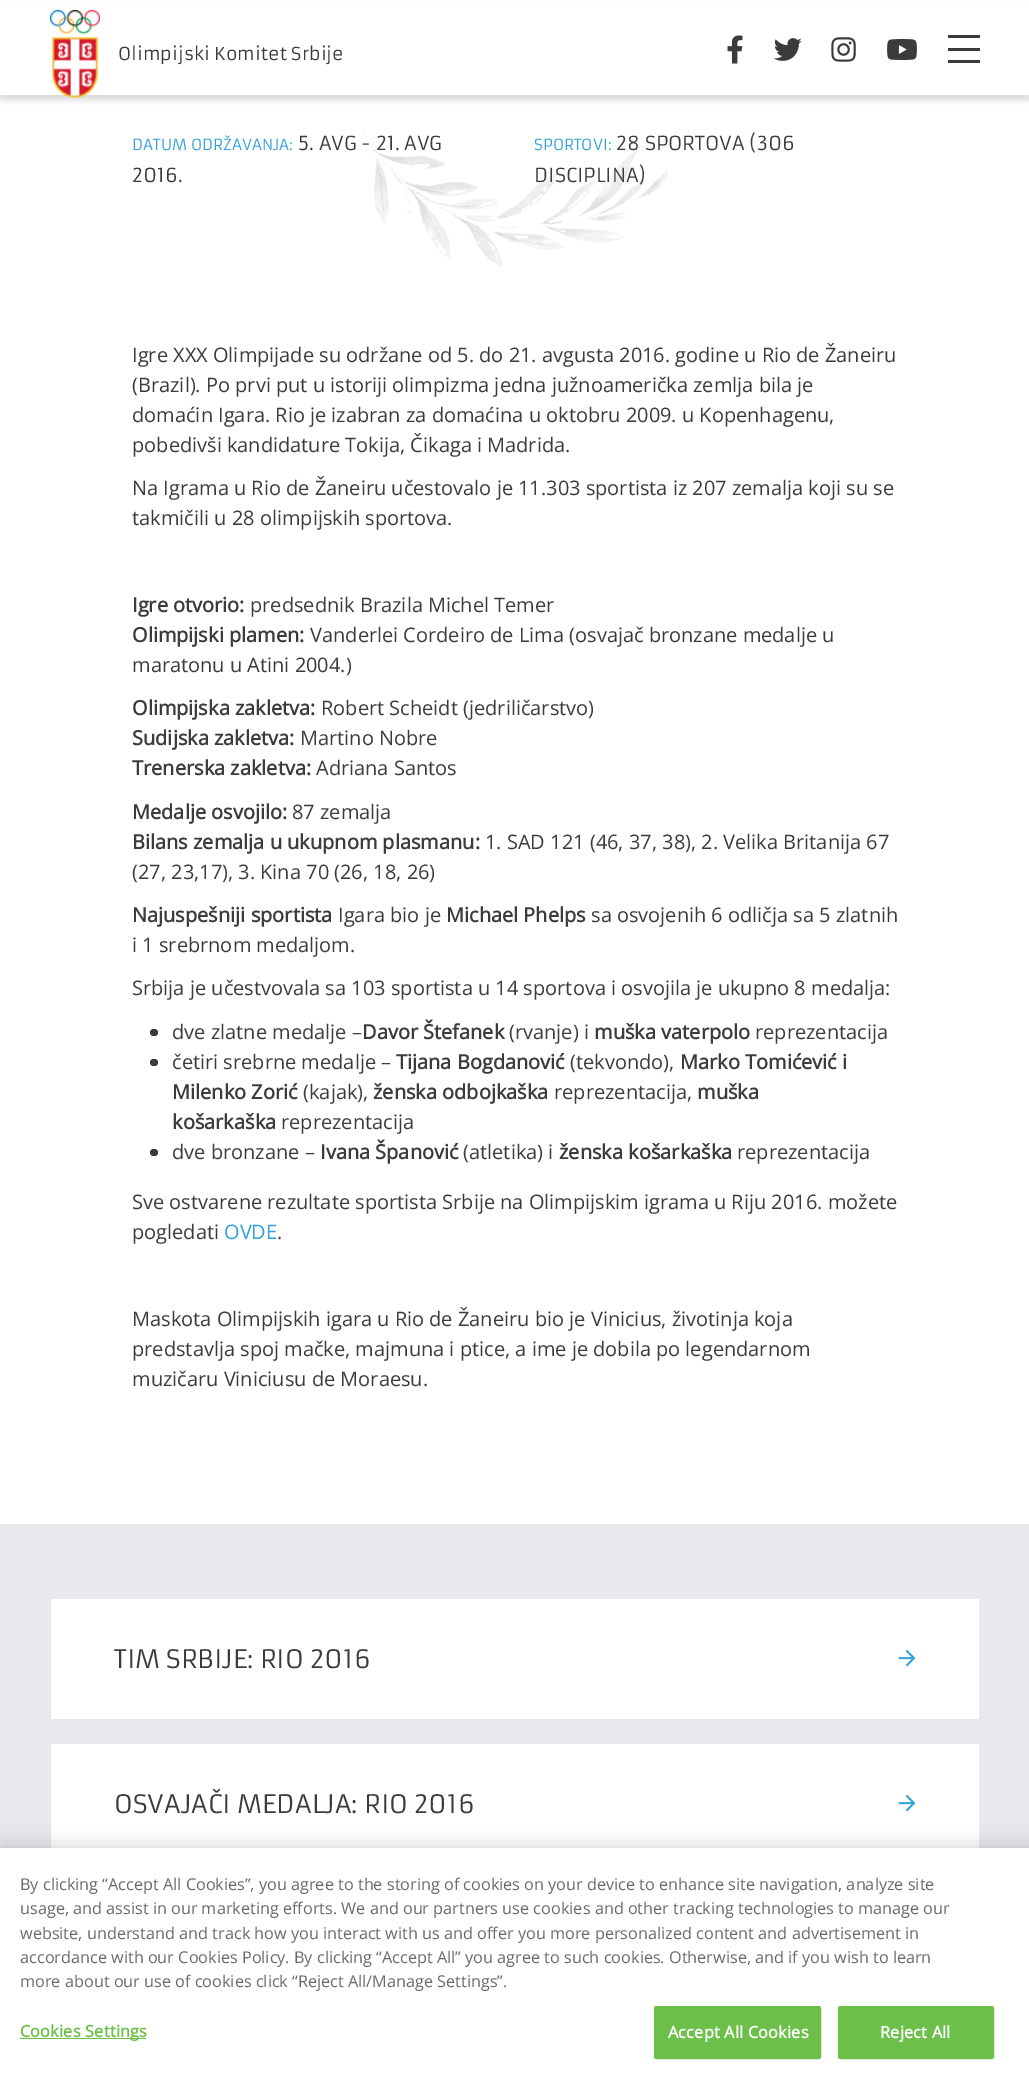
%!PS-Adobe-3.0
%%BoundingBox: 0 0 1029 2085
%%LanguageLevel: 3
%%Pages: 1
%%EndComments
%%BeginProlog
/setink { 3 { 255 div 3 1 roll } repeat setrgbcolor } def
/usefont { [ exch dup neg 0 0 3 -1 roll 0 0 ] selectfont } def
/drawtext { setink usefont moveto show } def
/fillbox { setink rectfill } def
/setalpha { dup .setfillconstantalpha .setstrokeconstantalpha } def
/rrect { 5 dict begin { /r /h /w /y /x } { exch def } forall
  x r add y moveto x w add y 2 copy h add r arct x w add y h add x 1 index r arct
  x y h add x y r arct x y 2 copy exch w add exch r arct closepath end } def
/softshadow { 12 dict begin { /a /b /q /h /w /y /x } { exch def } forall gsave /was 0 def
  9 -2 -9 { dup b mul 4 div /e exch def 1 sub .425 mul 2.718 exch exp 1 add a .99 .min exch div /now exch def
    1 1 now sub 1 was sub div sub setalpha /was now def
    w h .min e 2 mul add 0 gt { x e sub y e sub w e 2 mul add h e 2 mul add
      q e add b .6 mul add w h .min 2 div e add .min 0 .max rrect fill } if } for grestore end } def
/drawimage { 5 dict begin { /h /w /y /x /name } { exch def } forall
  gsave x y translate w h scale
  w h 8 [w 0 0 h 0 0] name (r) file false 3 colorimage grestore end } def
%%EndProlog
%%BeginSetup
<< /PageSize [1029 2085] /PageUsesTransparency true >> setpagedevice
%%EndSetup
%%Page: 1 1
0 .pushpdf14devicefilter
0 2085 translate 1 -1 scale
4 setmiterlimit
0 0 1029 2085 255 255 255 fillbox
0 0 0 setink
0 5 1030 95 0 3 0.15 softshadow
0 1 1029 94 255 255 255 fillbox
(assets/img1.rgb) 50 10 51 88 drawimage
(Olimpijski Komitet Srbije) 118 60 /Armata-Regular 17.5 59 59 59 drawtext
(assets/img2.rgb) 727 35 16 29 drawimage
(assets/img3.rgb) 774 38 28 23 drawimage
(assets/img4.rgb) 831 37 25 25 drawimage
(assets/img5.rgb) 887 39 30 21 drawimage
948 35 32 3 59 59 59 fillbox
948 48 32 3 59 59 59 fillbox
948 60 32 3 59 59 59 fillbox
(assets/img6.rgb) 362 127 306 140 drawimage
(DATUM ODRŽAVANJA:) 132 150 /Armata-Regular 15 50 159 218 drawtext
(5. AVG - 21. AVG) 298 150 /Armata-Regular 19 59 59 59 drawtext
(2016.) 132 182 /Armata-Regular 19 59 59 59 drawtext
(SPORTOVI:) 534 150 /Armata-Regular 15 50 159 218 drawtext
(28 SPORTOVA \(306) 616 150 /Armata-Regular 19 59 59 59 drawtext
(DISCIPLINA\)) 534 182 /Armata-Regular 19 59 59 59 drawtext
(Igre XXX Olimpijade su održane od 5. do 21. avgusta 2016. godine u Rio de Žaneiru) 132 362 /OpenSans-Regular 20 59 59 59 drawtext
(\(Brazil\). Po prvi put u istoriji olimpizma jedna južnoamerička zemlja bila je) 132 392 /OpenSans-Regular 20 59 59 59 drawtext
(domaćin Igara. Rio je izabran za domaćina u oktobru 2009. u Kopenhagenu,) 132 422 /OpenSans-Regular 20 59 59 59 drawtext
(pobedivši kandidature Tokija, Čikaga i Madrida.) 132 452 /OpenSans-Regular 20 59 59 59 drawtext
(Na Igrama u Rio de Žaneiru učestovalo je 11.303 sportista iz 207 zemalja koji su se) 132 495 /OpenSans-Regular 20 59 59 59 drawtext
(takmičili u 28 olimpijskih sportova.) 132 525 /OpenSans-Regular 20 59 59 59 drawtext
(Igre otvorio:) 132 612 /OpenSans-Bold 20 59 59 59 drawtext
(predsednik Brazila Michel Temer) 250 612 /OpenSans-Regular 20 59 59 59 drawtext
(Olimpijski plamen:) 132 642 /OpenSans-Bold 20 59 59 59 drawtext
(Vanderlei Cordeiro de Lima \(osvajač bronzane medalje u) 310 642 /OpenSans-Regular 20 59 59 59 drawtext
(maratonu u Atini 2004.\)) 132 672 /OpenSans-Regular 20 59 59 59 drawtext
(Olimpijska zakletva:) 132 715 /OpenSans-Bold 20 59 59 59 drawtext
(Robert Scheidt \(jedriličarstvo\)) 321 715 /OpenSans-Regular 20 59 59 59 drawtext
(Sudijska zakletva:) 132 745 /OpenSans-Bold 20 59 59 59 drawtext
(Martino Nobre) 300 745 /OpenSans-Regular 20 59 59 59 drawtext
(Trenerska zakletva:) 132 775 /OpenSans-Bold 20 59 59 59 drawtext
(Adriana Santos) 316 775 /OpenSans-Regular 20 59 59 59 drawtext
(Medalje osvojilo:) 132 819 /OpenSans-Bold 20 59 59 59 drawtext
(87 zemalja) 292 819 /OpenSans-Regular 20 59 59 59 drawtext
(Bilans zemalja u ukupnom plasmanu:) 132 849 /OpenSans-Bold 20 59 59 59 drawtext
(1. SAD 121 \(46, 37, 38\), 2. Velika Britanija 67) 485 849 /OpenSans-Regular 20 59 59 59 drawtext
(\(27, 23,17\), 3. Kina 70 \(26, 18, 26\)) 132 879 /OpenSans-Regular 20 59 59 59 drawtext
(Najuspešniji sportista) 132 922 /OpenSans-Bold 20 59 59 59 drawtext
(Igara bio je) 338 922 /OpenSans-Regular 20 59 59 59 drawtext
(Michael Phelps) 446 922 /OpenSans-Bold 20 59 59 59 drawtext
(sa osvojenih 6 odličja sa 5 zlatnih) 591 922 /OpenSans-Regular 20 59 59 59 drawtext
(i 1 srebrnom medaljom.) 132 952 /OpenSans-Regular 20 59 59 59 drawtext
(Srbija je učestvovala sa 103 sportista u 14 sportova i osvojila je ukupno 8 medalja:) 132 995 /OpenSans-Regular 20 59 59 59 drawtext
150 1029 8 7 3.5 rrect fill
(dve zlatne medalje –) 172 1039 /OpenSans-Regular 20 59 59 59 drawtext
(Davor Štefanek) 362 1039 /OpenSans-Bold 20 59 59 59 drawtext
(\(rvanje\) i) 509 1039 /OpenSans-Regular 20 59 59 59 drawtext
(muška vaterpolo) 594 1039 /OpenSans-Bold 20 59 59 59 drawtext
(reprezentacija) 755 1039 /OpenSans-Regular 20 59 59 59 drawtext
150 1059 8 7 3.5 rrect fill
(četiri srebrne medalje –) 172 1069 /OpenSans-Regular 20 59 59 59 drawtext
(Tijana Bogdanović) 396 1069 /OpenSans-Bold 20 59 59 59 drawtext
(\(tekvondo\),) 570 1069 /OpenSans-Regular 20 59 59 59 drawtext
(Marko Tomićević i) 680 1069 /OpenSans-Bold 20 59 59 59 drawtext
(Milenko Zorić) 172 1099 /OpenSans-Bold 20 59 59 59 drawtext
(\(kajak\),) 303 1099 /OpenSans-Regular 20 59 59 59 drawtext
(ženska odbojkaška) 373 1099 /OpenSans-Bold 20 59 59 59 drawtext
(reprezentacija,) 554 1099 /OpenSans-Regular 20 59 59 59 drawtext
(muška) 697 1099 /OpenSans-Bold 20 59 59 59 drawtext
(košarkaška) 172 1129 /OpenSans-Bold 20 59 59 59 drawtext
(reprezentacija) 281 1129 /OpenSans-Regular 20 59 59 59 drawtext
150 1149 8 7 3.5 rrect fill
(dve bronzane –) 172 1159 /OpenSans-Regular 20 59 59 59 drawtext
(Ivana Španović) 320 1159 /OpenSans-Bold 20 59 59 59 drawtext
(\(atletika\) i) 463 1159 /OpenSans-Regular 20 59 59 59 drawtext
(ženska košarkaška) 559 1159 /OpenSans-Bold 20 59 59 59 drawtext
(reprezentacija) 737 1159 /OpenSans-Regular 20 59 59 59 drawtext
(Sve ostvarene rezultate sportista Srbije na Olimpijskim igrama u Riju 2016. možete) 132 1209 /OpenSans-Regular 20 59 59 59 drawtext
(pogledati) 132 1239 /OpenSans-Regular 20 59 59 59 drawtext
(OVDE) 224 1239 /OpenSans-Regular 20 50 159 218 drawtext
(.) 277 1239 /OpenSans-Regular 20 59 59 59 drawtext
(Maskota Olimpijskih igara u Rio de Žaneiru bio je Vinicius, životinja koja) 132 1326 /OpenSans-Regular 20 59 59 59 drawtext
(predstavlja spoj mačke, majmuna i ptice, a ime je dobila po legendarnom) 132 1356 /OpenSans-Regular 20 59 59 59 drawtext
(muzičaru Viniciusu de Moraesu.) 132 1386 /OpenSans-Regular 20 59 59 59 drawtext
0 1524 1029 324 232 233 237 fillbox
51 1599 928 120 255 255 255 fillbox
(TIM SRBIJE: RIO 2016) 114 1668 /Armata-Regular 25 59 59 59 drawtext
(assets/img7.rgb) 898 1649 18 18 drawimage
51 1744 928 104 255 255 255 fillbox
(OSVAJAČI MEDALJA: RIO 2016) 114 1813 /Armata-Regular 25 59 59 59 drawtext
(assets/img7.rgb) 898 1794 18 18 drawimage
0 0 0 setink
0 1848 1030 237 0 11 0.2 softshadow
0 1848 1029 237 255 255 255 fillbox
(By clicking “Accept All Cookies”, you agree to the storing of cookies on your device to enhance site navigation, analyze site) 20 1890 /OpenSans-Regular 16.25 105 105 105 drawtext
(usage, and assist in our marketing efforts. We and our partners use cookies and other tracking technologies to manage our) 20 1914 /OpenSans-Regular 16.25 105 105 105 drawtext
(website, understand and track how you interact with us and offer you more personalized content and advertisement in) 20 1939 /OpenSans-Regular 16.25 105 105 105 drawtext
(accordance with our Cookies Policy. By clicking “Accept All” you agree to such cookies. Otherwise, and if you wish to learn) 20 1963 /OpenSans-Regular 16.25 105 105 105 drawtext
(more about our use of cookies click “Reject All/Manage Settings”.) 20 1987 /OpenSans-Regular 16.25 105 105 105 drawtext
20 2038 126 1 108 192 74 fillbox
/OpenSans-Bold 16.25 usefont
20 2037 moveto 0.2 0 (Cookies Settings) ashow
654.5 2006.5 166 52 2 rrect gsave fill grestore
stroke
255 255 255 setink
668 2038 moveto 0.2 0 (Accept All Cookies) ashow
108 192 74 setink
838.5 2006.5 155 52 2 rrect gsave fill grestore
stroke
255 255 255 setink
880 2038 moveto 0.2 0 (Reject All) ashow
.poppdf14devicefilter showpage
%%EOF
